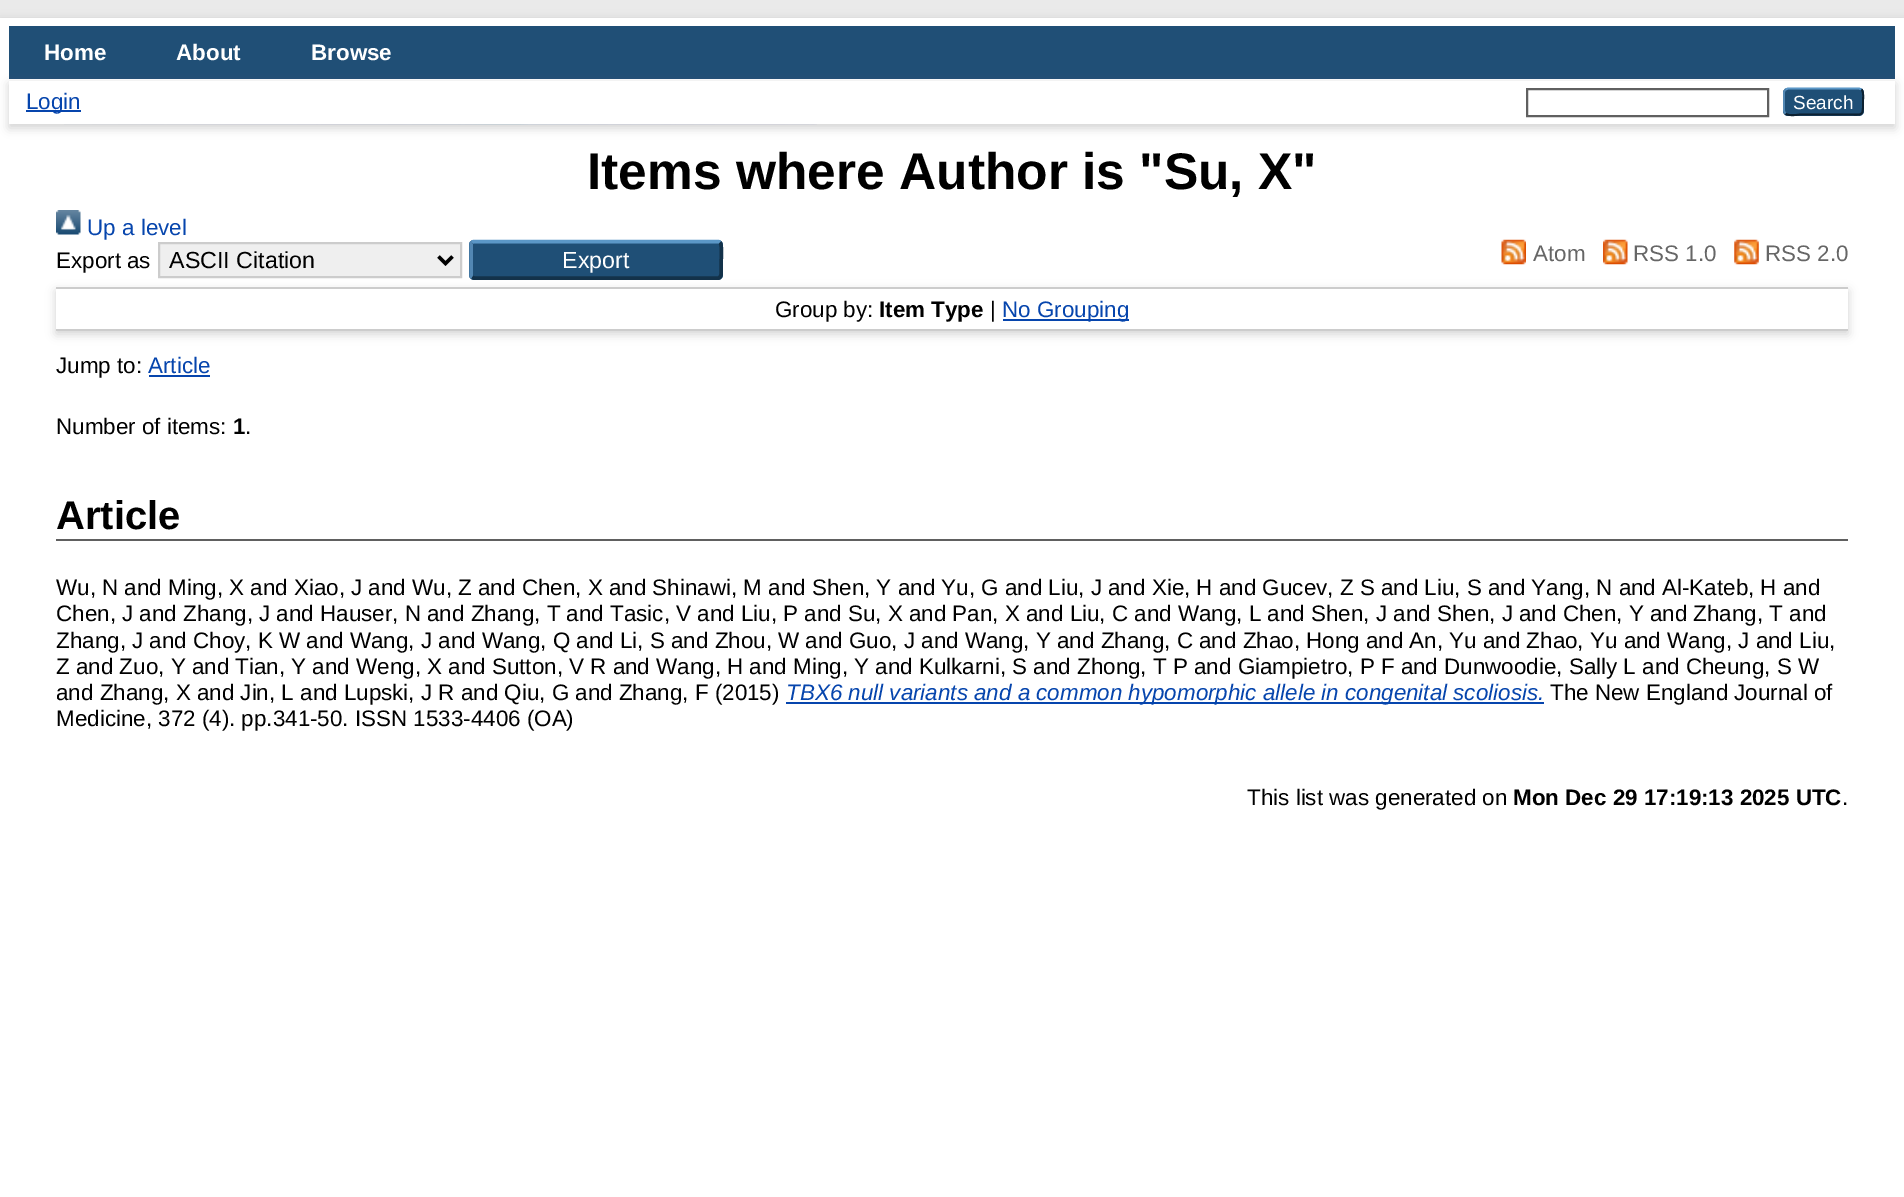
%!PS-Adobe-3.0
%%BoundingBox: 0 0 1904 1197
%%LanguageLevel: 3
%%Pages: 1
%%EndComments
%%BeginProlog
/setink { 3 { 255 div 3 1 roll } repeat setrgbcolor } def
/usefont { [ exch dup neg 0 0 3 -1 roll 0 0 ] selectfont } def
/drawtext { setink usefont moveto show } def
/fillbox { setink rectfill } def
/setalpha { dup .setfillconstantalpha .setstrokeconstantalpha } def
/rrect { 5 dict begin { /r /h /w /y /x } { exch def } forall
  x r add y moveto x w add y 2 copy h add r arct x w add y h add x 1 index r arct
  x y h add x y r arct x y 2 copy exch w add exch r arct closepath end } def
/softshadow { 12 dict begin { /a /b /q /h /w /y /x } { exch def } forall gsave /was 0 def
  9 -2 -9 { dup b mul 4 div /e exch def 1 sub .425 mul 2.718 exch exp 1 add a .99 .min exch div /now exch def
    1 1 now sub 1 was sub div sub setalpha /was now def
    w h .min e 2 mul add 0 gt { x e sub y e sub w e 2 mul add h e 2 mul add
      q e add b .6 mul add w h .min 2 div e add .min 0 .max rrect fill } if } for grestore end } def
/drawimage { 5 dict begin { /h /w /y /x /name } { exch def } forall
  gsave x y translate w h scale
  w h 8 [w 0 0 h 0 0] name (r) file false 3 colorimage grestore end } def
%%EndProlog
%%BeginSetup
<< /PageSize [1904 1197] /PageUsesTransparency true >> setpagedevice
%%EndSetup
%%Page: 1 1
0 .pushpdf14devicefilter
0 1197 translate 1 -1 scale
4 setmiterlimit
0 0 1904 1197 234 234 234 fillbox
100 100 100 setink
0 21 1904 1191 0 5 0.3 softshadow
0 18 1904 1179 255 255 255 fillbox
(assets/img1.rgb) 64 124 753 1 drawimage
9 26 1886 53 32 79 118 fillbox
(Home) 44 60 /LiberationSans-Bold 22.4 255 255 255 drawtext
(About) 176 60 /LiberationSans-Bold 22.4 255 255 255 drawtext
(Browse) 311 60 /LiberationSans-Bold 22.4 255 255 255 drawtext
100 100 100 setink
9 84 1886 44 0 5 0.3 softshadow
9 81 1886 43 255 255 255 fillbox
26 110 55 2 6 69 173 fillbox
(Login) 26 109 /LiberationSans-Regular 22.4 6 69 173 drawtext
96 96 96 setink
2 setlinewidth
1527 89 241 27 rectstroke
31 79 118 setink
1783 88 81 28 5 rrect fill
91 151 199 setink
1.8 setlinewidth
1785.5 89.5 moveto 1788 88.5 lineto 1859 88.5 lineto 1861.5 89.5 lineto stroke
13 33 49 setink
1861.5 89.5 moveto 1864 92 1863 98.5 1863 101.5 curveto 1863 117 1863.5 114.5 1847 114.5 curveto 1800 114.5 lineto 1799.5 114.5 1788.5 116.5 1785.5 113.5 curveto stroke
82 135 179 setink
1785.5 113.5 moveto 1784.5 112.5 1784 111.5 1784 110 curveto 1784 93 lineto 1784 91.5 1784.5 90.5 1785.5 89.5 curveto stroke
(Search) 1793 109 /LiberationSans-Regular 19 255 255 255 drawtext
(Items where Author is "Su, X") 587 189 /LiberationSans-Bold 51.5 0 0 0 drawtext
(assets/img2.rgb) 56 210 25 25 drawimage
(Up a level) 87 235 /LiberationSans-Regular 22.4 6 69 173 drawtext
(Export as) 56 268 /LiberationSans-Regular 22.4 0 0 0 drawtext
100 100 100 setink
56 291 1792 43 0 5 0.3 softshadow
239 239 239 setink
159 243 moveto 461 243 lineto 461 277 lineto 159 277 lineto closepath gsave fill grestore
204 204 204 setink
2 setlinewidth
stroke
0 0 0 setink
3.5 setlinewidth
438.5 256.5 moveto 445.5 263.5 lineto 452.5 256.5 lineto stroke
(ASCII Citation) 169 268 /LiberationSans-Regular 23.25 0 0 0 drawtext
31 79 118 setink
469 240 254 40 5 rrect fill
91 151 199 setink
472 242.5 moveto 472.5 242 473.5 241.5 474 241.5 curveto 717.5 241.5 lineto 718.5 241.5 719.5 242 720 242.5 curveto stroke
19 50 74 setink
720 242.5 moveto 722.5 245 721 261 721 265 curveto 721 270 lineto 721 272.5 722 277 718.5 278 curveto 474 278 lineto 472 277 lineto stroke
82 135 179 setink
472 277 moveto 471 276.5 471 275.5 471 275 curveto 471 245 lineto 471 244 471 243 472 242.5 curveto stroke
(Export) 562 268 /LiberationSans-Regular 23.25 255 255 255 drawtext
(assets/img3.rgb) 1501 239 25 26 drawimage
(Atom) 1533 261 /LiberationSans-Regular 22.4 102 102 102 drawtext
(assets/img4.rgb) 1603 239 25 26 drawimage
(RSS 1.0) 1633 261 /LiberationSans-Regular 22.4 102 102 102 drawtext
(assets/img5.rgb) 1734 239 25 26 drawimage
(RSS 2.0) 1765 261 /LiberationSans-Regular 22.4 102 102 102 drawtext
56 289 1792 40 255 255 255 fillbox
56 287 1792 2 204 204 204 fillbox
56 329 1792 2 204 204 204 fillbox
(Group by:) 775 317 /LiberationSans-Regular 22.4 0 0 0 drawtext
(Item Type) 879 317 /LiberationSans-Bold 22.4 0 0 0 drawtext
(|) 990 317 /LiberationSans-Regular 22.4 0 0 0 drawtext
1003 319 126 2 6 69 173 fillbox
(No Grouping) 1002 317 /LiberationSans-Regular 22.4 6 69 173 drawtext
(Jump to:) 56 373 /LiberationSans-Regular 22.4 0 0 0 drawtext
(Article) 148 373 /LiberationSans-Regular 22.4 6 69 173 drawtext
149 375 61 2 6 69 173 fillbox
(Number of items:) 56 434 /LiberationSans-Regular 22.4 0 0 0 drawtext
(1) 233 434 /LiberationSans-Bold 22.4 0 0 0 drawtext
(.) 245 434 /LiberationSans-Regular 22.4 0 0 0 drawtext
56 539 1792 2 96 96 96 fillbox
(Article) 56 529 /LiberationSans-Bold 40 0 0 0 drawtext
(Wu, N and Ming, X and Xiao, J and Wu, Z and Chen, X and Shinawi, M and Shen, Y and Yu, G and Liu, J and Xie, H and Gucev, Z S and Liu, S and Yang, N and Al-Kateb, H and) 56 595 /LiberationSans-Regular 22.4 0 0 0 drawtext
(Chen, J and Zhang, J and Hauser, N and Zhang, T and Tasic, V and Liu, P and Su, X and Pan, X and Liu, C and Wang, L and Shen, J and Shen, J and Chen, Y and Zhang, T and) 56 621 /LiberationSans-Regular 22.4 0 0 0 drawtext
(Zhang, J and Choy, K W and Wang, J and Wang, Q and Li, S and Zhou, W and Guo, J and Wang, Y and Zhang, C and Zhao, Hong and An, Yu and Zhao, Yu and Wang, J and Liu,) 56 648 /LiberationSans-Regular 22.4 0 0 0 drawtext
(Z and Zuo, Y and Tian, Y and Weng, X and Sutton, V R and Wang, H and Ming, Y and Kulkarni, S and Zhong, T P and Giampietro, P F and Dunwoodie, Sally L and Cheung, S W) 56 674 /LiberationSans-Regular 22.4 0 0 0 drawtext
(and Zhang, X and Jin, L and Lupski, J R and Qiu, G and Zhang, F \(2015\)) 56 700 /LiberationSans-Regular 22.4 0 0 0 drawtext
786 702 758 2 6 69 173 fillbox
(TBX6 null variants and a common hypomorphic allele in congenital scoliosis.) 786 700 /LiberationSans-Italic 22.4 6 69 173 drawtext
(The New England Journal of) 1550 700 /LiberationSans-Regular 22.4 0 0 0 drawtext
(Medicine, 372 \(4\). pp.341-50. ISSN 1533-4406 \(OA\)) 56 726 /LiberationSans-Regular 22.4 0 0 0 drawtext
(This list was generated on) 1247 805 /LiberationSans-Regular 22.4 0 0 0 drawtext
(Mon Dec 29 17:19:13 2025 UTC) 1513 805 /LiberationSans-Bold 22.4 0 0 0 drawtext
(.) 1842 805 /LiberationSans-Regular 22.4 0 0 0 drawtext
.poppdf14devicefilter showpage
%%EOF
